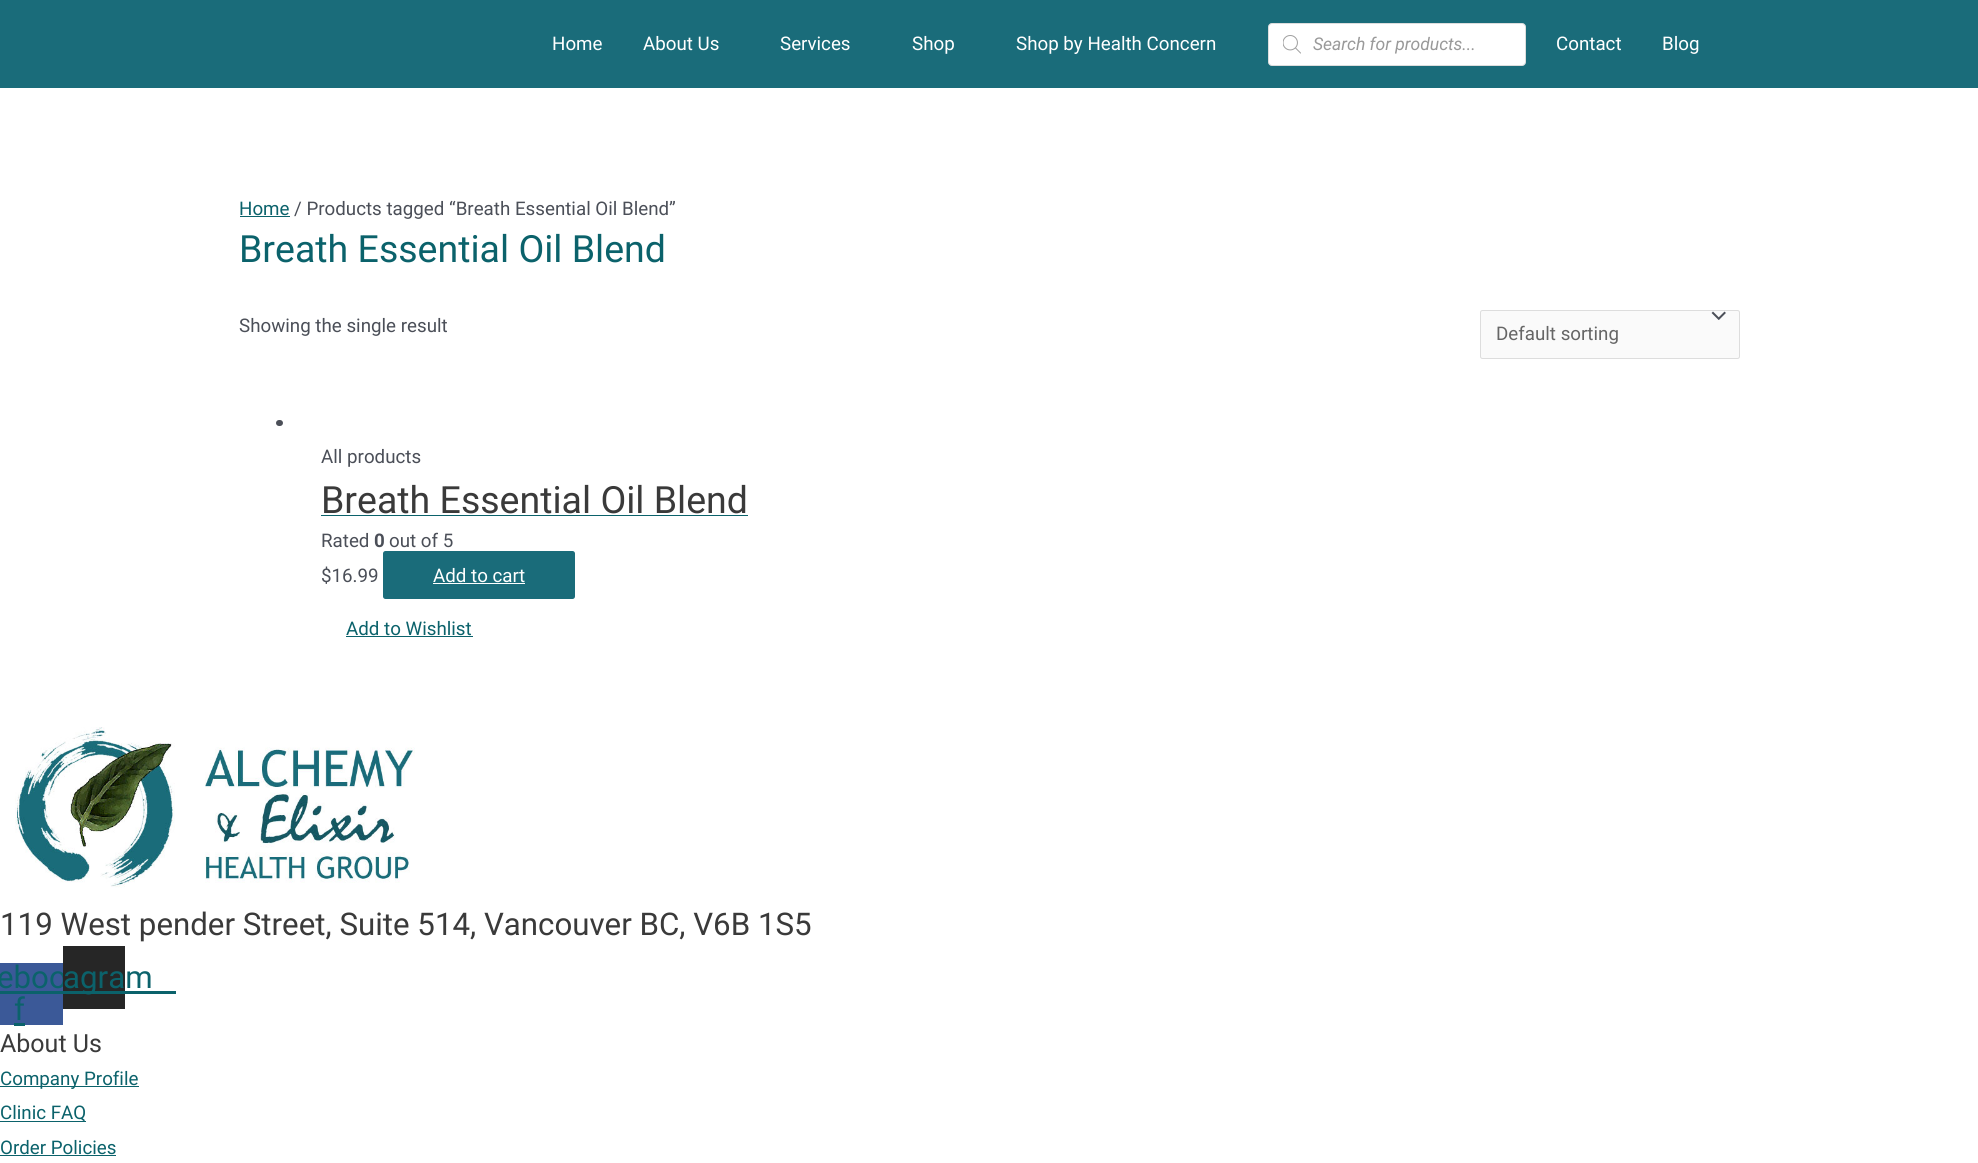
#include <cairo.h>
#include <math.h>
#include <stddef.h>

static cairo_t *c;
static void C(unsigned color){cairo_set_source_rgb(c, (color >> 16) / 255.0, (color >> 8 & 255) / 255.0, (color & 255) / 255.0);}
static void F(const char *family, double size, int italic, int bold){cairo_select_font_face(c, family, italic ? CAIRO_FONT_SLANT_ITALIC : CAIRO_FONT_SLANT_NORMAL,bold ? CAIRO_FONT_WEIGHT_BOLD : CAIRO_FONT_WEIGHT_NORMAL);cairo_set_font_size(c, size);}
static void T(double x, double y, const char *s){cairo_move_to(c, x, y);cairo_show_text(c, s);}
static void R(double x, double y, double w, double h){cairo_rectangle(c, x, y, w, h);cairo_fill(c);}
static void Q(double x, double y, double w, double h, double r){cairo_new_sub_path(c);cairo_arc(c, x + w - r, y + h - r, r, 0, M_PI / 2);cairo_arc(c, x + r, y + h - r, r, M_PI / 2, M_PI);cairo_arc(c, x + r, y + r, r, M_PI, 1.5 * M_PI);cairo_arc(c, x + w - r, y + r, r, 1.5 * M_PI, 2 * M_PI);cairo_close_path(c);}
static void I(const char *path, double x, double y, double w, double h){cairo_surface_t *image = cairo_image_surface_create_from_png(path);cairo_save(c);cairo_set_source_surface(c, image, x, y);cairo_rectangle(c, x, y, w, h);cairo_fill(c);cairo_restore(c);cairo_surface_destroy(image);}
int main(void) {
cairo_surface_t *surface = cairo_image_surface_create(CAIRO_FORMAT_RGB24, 1978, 1163);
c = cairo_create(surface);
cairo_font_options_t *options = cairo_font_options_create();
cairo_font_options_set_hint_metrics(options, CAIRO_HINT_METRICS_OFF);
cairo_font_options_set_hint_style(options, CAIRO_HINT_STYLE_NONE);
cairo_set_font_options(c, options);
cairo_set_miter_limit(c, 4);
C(0xffffff);
cairo_paint(c);
C(0x1a6c7a);
R(0,0,1978,88);
F("Roboto",18.75,0,0);
C(0xffffff);
T(552,50,"Home");
T(643,50,"About Us");
T(780,50,"Services");
T(912,50,"Shop");
T(1016,50,"Shop by Health Concern");
Q(1268.5,23.5,257,42,3.5);
cairo_fill_preserve(c);
C(0xdddddd);
cairo_set_line_width(c,1);
cairo_stroke(c);
I("1.png",1283,35,18,19);
F("Roboto",17.5,1,0);
C(0x999999);
T(1313,50,"Search for products...");
F("Roboto",18.75,0,0);
C(0xffffff);
T(1556,50,"Contact");
T(1662,50,"Blog");
C(0x0b626b);
T(239,215,"Home");
R(240,216,50,1);
C(0x4b4f58);
T(294,215,"/ Products tagged “Breath Essential Oil Blend”");
F("Roboto",37.5,0,0);
C(0x0b626b);
T(239,262,"Breath Essential Oil Blend");
F("Roboto",18.75,0,0);
C(0x4b4f58);
T(239,332,"Showing the single result");
C(0xfafafa);
Q(1480,310,260,49,2.5);
cairo_fill(c);
I("2.png",1711,311,15,9);
Q(1480.5,310.5,259,48,2);
C(0xdddddd);
cairo_stroke(c);
C(0x666666);
T(1496,340,"Default sorting");
C(0x4b4f58);
Q(276,420,7,6,3);
cairo_fill(c);
T(321,463,"All products");
F("Roboto",37.5,0,0);
C(0x3a3a3a);
T(321,513,"Breath Essential Oil Blend");
C(0x0b626b);
R(321,515,427,1);
F("Roboto",18.75,0,0);
C(0x4b4f58);
T(321,547,"Rated");
F("Roboto",18.75,0,1);
T(374,547,"0");
F("Roboto",18.75,0,0);
T(389,547,"out of 5");
T(321,582,"$16.99");
C(0x1a6c7a);
Q(383,551,192,48,2.5);
cairo_fill(c);
C(0xffffff);
T(433,582,"Add to cart");
R(433,583,92,1);
C(0x0b626b);
T(346,635,"Add to Wishlist");
R(346,636,127,1);
I("3.png",15,727,400,161);
F("Roboto",31.25,0,0);
C(0x3a3a3a);
T(0,935,"119 West pender Street, Suite 514, Vancouver BC, V6B 1S5");
C(0x3b5998);
R(0,963,63,62);
C(0x0b626b);
T(-3,988,"eboo");
R(0,991,11,3);
T(14,1020,"f");
R(14,1023,11,3);
C(0x262626);
R(63,946,62,63);
C(0x0b626b);
R(11,991,165,3);
T(63,988,"agram");
F("Roboto",25,0,0);
C(0x3a3a3a);
T(0,1052,"About Us");
C(0x0b626b);
R(0,1086,139,1);
F("Roboto",18.75,0,0);
T(0,1085,"Company Profile");
R(0,1121,86,1);
T(0,1119,"Clinic FAQ");
T(0,1154,"Order Policies");
R(0,1155,116,1);
cairo_surface_write_to_png(surface, "o.png");
cairo_font_options_destroy(options);
cairo_destroy(c);
cairo_surface_destroy(surface);
return 0;
}
